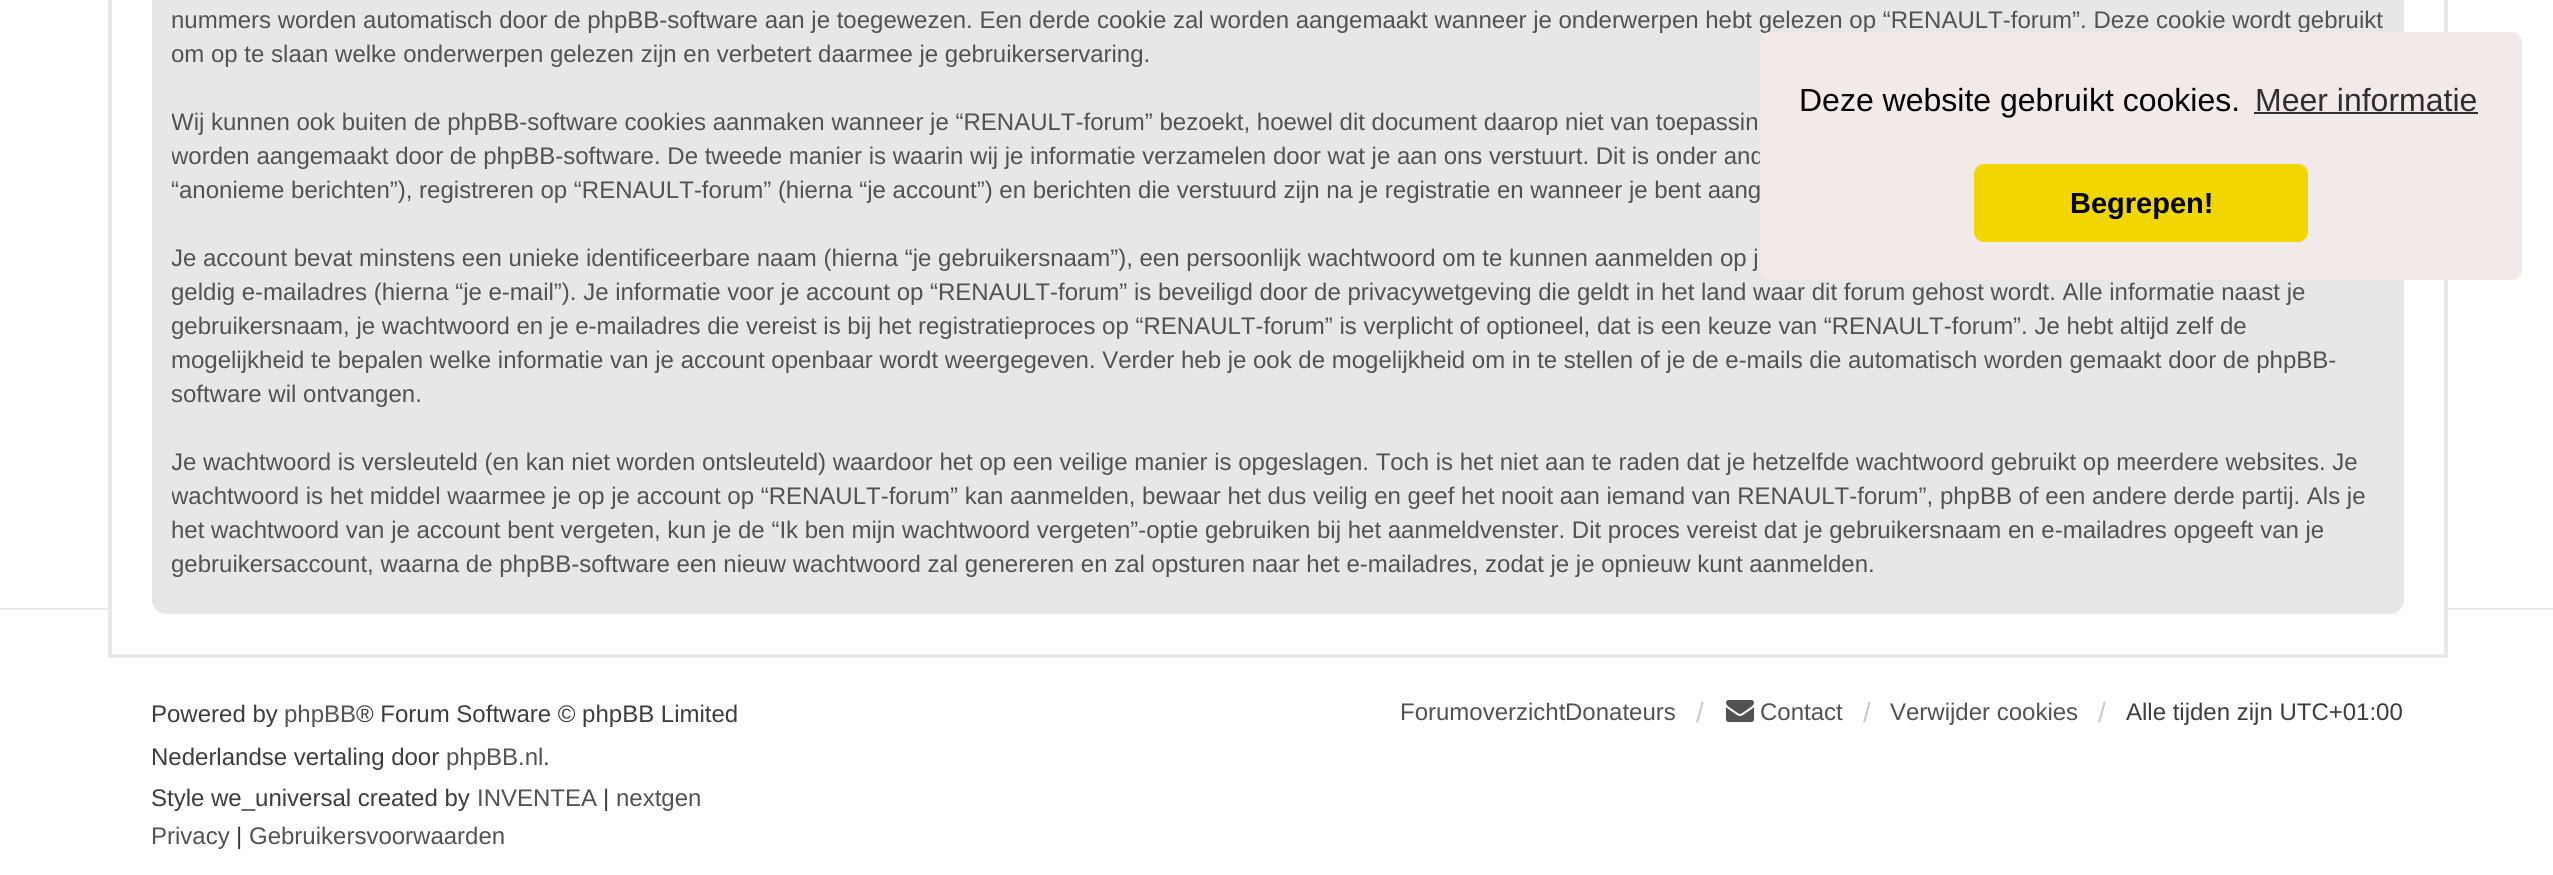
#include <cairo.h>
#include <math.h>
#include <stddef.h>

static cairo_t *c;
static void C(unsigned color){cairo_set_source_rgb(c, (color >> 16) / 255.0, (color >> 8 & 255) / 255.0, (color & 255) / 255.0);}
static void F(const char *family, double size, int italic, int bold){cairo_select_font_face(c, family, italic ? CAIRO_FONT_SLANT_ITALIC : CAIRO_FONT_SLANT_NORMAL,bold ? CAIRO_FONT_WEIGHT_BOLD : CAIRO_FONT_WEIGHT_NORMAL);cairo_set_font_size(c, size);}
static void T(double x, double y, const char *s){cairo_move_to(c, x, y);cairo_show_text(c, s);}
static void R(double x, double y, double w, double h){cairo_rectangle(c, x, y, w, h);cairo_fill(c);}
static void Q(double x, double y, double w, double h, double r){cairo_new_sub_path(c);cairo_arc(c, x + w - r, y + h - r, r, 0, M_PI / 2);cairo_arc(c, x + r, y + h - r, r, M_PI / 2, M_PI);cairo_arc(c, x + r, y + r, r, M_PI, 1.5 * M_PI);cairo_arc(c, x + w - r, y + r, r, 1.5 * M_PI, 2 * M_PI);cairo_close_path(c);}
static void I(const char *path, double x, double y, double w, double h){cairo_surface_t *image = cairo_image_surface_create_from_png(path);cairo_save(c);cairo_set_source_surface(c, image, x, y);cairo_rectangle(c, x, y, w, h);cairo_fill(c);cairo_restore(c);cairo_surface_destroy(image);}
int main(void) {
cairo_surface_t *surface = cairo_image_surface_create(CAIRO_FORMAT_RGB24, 2553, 875);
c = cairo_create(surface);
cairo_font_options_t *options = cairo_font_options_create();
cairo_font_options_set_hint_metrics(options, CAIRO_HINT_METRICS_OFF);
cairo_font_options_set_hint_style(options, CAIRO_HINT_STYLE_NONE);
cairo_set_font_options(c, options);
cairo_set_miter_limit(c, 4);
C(0xffffff);
cairo_paint(c);
C(0xe7e7e7);
R(0,608,2553,2);
C(0xffffff);
R(112,608,2332,2);
C(0xe7e7e7);
R(2444,0,4,658);
R(108,654,2340,4);
R(108,0,4,658);
Q(152,-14,2252,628,14);
cairo_fill(c);
F("Liberation Sans",24,0,0);
C(0x525252);
T(171,28,"nummers worden automatisch door de phpBB-software aan je toegewezen. Een derde cookie zal worden aangemaakt wanneer je onderwerpen hebt gelezen op “RENAULT-forum”. Deze cookie wordt gebruikt");
T(171,62,"om op te slaan welke onderwerpen gelezen zijn en verbetert daarmee je gebruikerservaring.");
cairo_save(c);
cairo_rectangle(c,172,0,2212,604);
cairo_clip(c);
T(171,130,"Wij kunnen ook buiten de phpBB-software cookies aanmaken wanneer je “RENAULT-forum” bezoekt, hoewel dit document daarop niet van toepassin");
T(171,164,"worden aangemaakt door de phpBB-software. De tweede manier is waarin wij je informatie verzamelen door wat je aan ons verstuurt. Dit is onder and");
cairo_restore(c);
T(171,198,"“anonieme berichten”), registreren op “RENAULT-forum” (hierna “je account”) en berichten die verstuurd zijn na je registratie en wanneer je bent aang");
cairo_save(c);
cairo_rectangle(c,172,0,2212,604);
cairo_clip(c);
T(171,266,"Je account bevat minstens een unieke identificeerbare naam (hierna “je gebruikersnaam”), een persoonlijk wachtwoord om te kunnen aanmelden op j");
cairo_restore(c);
T(171,300,"geldig e-mailadres (hierna “je e-mail”). Je informatie voor je account op “RENAULT-forum” is beveiligd door de privacywetgeving die geldt in het land waar dit forum gehost wordt. Alle informatie naast je");
T(171,334,"gebruikersnaam, je wachtwoord en je e-mailadres die vereist is bij het registratieproces op “RENAULT-forum” is verplicht of optioneel, dat is een keuze van “RENAULT-forum”. Je hebt altijd zelf de");
T(171,368,"mogelijkheid te bepalen welke informatie van je account openbaar wordt weergegeven. Verder heb je ook de mogelijkheid om in te stellen of je de e-mails die automatisch worden gemaakt door de phpBB-");
T(171,402,"software wil ontvangen.");
cairo_save(c);
cairo_rectangle(c,172,0,2212,604);
cairo_clip(c);
T(171,470,"Je wachtwoord is versleuteld (en kan niet worden ontsleuteld) waardoor het op een veilige manier is opgeslagen. Toch is het niet aan te raden dat je hetzelfde wachtwoord gebruikt op meerdere websites. Je");
T(171,504,"wachtwoord is het middel waarmee je op je account op “RENAULT-forum” kan aanmelden, bewaar het dus veilig en geef het nooit aan iemand van RENAULT-forum”, phpBB of een andere derde partij. Als je");
cairo_restore(c);
T(171,538,"het wachtwoord van je account bent vergeten, kun je de “Ik ben mijn wachtwoord vergeten”-optie gebruiken bij het aanmeldvenster. Dit proces vereist dat je gebruikersnaam en e-mailadres opgeeft van je");
T(171,572,"gebruikersaccount, waarna de phpBB-software een nieuw wachtwoord zal genereren en zal opsturen naar het e-mailadres, zodat je je opnieuw kunt aanmelden.");
C(0x3d3d3d);
T(151,722,"Powered by");
C(0x525252);
T(284,722,"phpBB");
C(0x3d3d3d);
T(356,722,"® Forum Software © phpBB Limited");
T(151,765,"Nederlandse vertaling door");
C(0x525252);
T(446,765,"phpBB.nl");
C(0x3d3d3d);
T(543,765,".");
T(151,806,"Style we_universal created by");
C(0x525252);
T(477,806,"INVENTEA");
C(0x3d3d3d);
T(603,806,"|");
C(0x525252);
T(616,806,"nextgen");
T(151,844,"Privacy");
C(0x3d3d3d);
T(236,844,"|");
C(0x525252);
T(249,844,"Gebruikersvoorwaarden");
T(1400,720,"Forumoverzicht");
T(1565,720,"Donateurs");
F("Liberation Sans",28,0,0);
C(0xcacaca);
T(1696,722,"/");
I("1.png",1726,700,28,22);
F("Liberation Sans",24,0,0);
C(0x525252);
T(1760,720,"Contact");
F("Liberation Sans",28,0,0);
C(0xcacaca);
T(1863,722,"/");
F("Liberation Sans",24,0,0);
C(0x525252);
T(1890,720,"Verwijder cookies");
F("Liberation Sans",28,0,0);
C(0xcacaca);
T(2098,722,"/");
F("Liberation Sans",24,0,0);
C(0x3d3d3d);
T(2126,720,"Alle tijden zijn UTC+01:00");
C(0xf2e9e9);
Q(1760,32,762,248,10);
cairo_fill(c);
F("Liberation Sans",32,0,0);
C(0x000000);
T(1799,111,"Deze website gebruikt cookies.");
C(0x302f2f);
T(2255,111,"Meer informatie");
R(2254,112,224,2);
C(0xf1d600);
Q(1974,164,334,78,10);
cairo_fill(c);
F("Liberation Sans",29,0,1);
C(0x000000);
T(2070,213,"Begrepen!");
cairo_surface_write_to_png(surface, "o.png");
cairo_font_options_destroy(options);
cairo_destroy(c);
cairo_surface_destroy(surface);
return 0;
}
